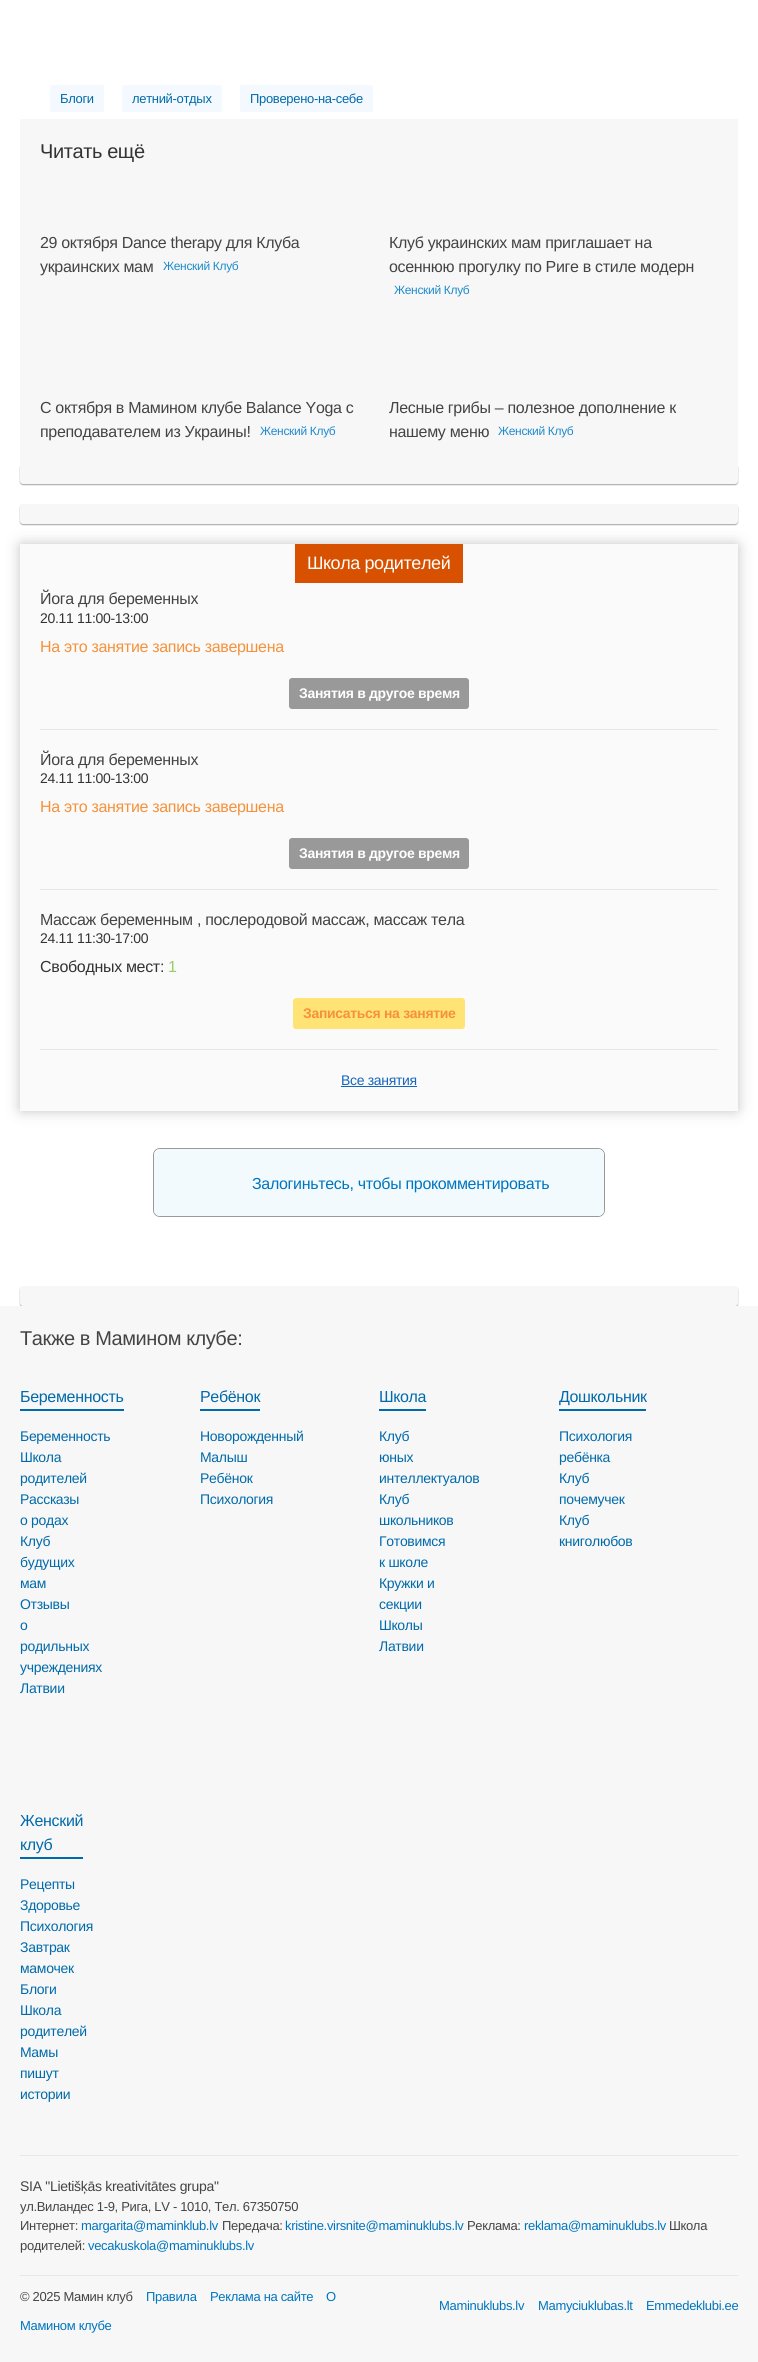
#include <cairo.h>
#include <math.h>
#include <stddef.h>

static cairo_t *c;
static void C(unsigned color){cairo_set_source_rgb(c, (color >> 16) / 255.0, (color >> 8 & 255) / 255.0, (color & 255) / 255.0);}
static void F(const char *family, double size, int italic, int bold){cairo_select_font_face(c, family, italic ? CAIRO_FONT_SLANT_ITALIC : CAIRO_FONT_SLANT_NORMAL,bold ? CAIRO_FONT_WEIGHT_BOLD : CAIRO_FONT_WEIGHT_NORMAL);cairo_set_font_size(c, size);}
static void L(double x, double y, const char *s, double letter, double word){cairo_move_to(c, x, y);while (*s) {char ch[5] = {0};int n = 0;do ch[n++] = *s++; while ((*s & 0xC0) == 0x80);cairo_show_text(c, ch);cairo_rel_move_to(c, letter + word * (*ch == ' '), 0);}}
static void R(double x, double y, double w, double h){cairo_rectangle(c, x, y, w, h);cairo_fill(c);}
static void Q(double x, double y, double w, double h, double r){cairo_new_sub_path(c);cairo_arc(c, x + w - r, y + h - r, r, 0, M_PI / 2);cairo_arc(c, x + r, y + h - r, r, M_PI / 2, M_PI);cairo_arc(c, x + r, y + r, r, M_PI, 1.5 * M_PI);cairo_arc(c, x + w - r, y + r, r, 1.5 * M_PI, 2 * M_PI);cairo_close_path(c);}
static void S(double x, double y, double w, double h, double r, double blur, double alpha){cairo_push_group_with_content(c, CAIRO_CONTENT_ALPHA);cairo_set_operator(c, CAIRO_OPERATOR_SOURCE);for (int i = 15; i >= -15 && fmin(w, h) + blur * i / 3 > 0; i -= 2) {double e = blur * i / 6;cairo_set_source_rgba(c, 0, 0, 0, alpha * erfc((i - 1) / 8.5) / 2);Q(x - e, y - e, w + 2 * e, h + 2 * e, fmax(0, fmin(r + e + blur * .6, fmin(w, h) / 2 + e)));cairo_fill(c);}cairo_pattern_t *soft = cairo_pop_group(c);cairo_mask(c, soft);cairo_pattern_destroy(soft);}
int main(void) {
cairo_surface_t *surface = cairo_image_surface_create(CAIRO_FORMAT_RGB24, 758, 2362);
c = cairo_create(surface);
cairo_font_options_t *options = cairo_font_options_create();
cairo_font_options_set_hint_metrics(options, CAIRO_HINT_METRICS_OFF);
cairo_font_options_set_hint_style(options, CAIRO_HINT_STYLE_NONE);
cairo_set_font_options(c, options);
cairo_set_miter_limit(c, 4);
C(0xffffff);
cairo_paint(c);
C(0xf3f9ff);
Q(50,85,54,27,2);
cairo_fill(c);
F("Liberation Sans",13,0,0);
C(0x006aaa);
L(60,103,"Блоги",-.32,0);
C(0xf3f9ff);
Q(122,85,100,27,2);
cairo_fill(c);
C(0x006aaa);
L(132,103,"летний-отдых",-.32,0);
C(0xf3f9ff);
Q(240,85,133,27,2);
cairo_fill(c);
C(0x006aaa);
L(250,103,"Проверено-на-себе",-.32,0);
C(0xf7f7f7);
R(20,119,718,345);
F("Liberation Sans",20,0,0);
C(0x333333);
L(40,158,"Читать ещё",-.4,0);
F("Liberation Sans",16,0,0);
C(0x444444);
L(40,248,"29 октября Dance therapy для Клуба",-.32,0);
L(40,272,"украинских мам",-.32,0);
F("Liberation Sans",12,0,0);
C(0x1f8bcc);
L(163,270,"Женский Клуб",-.32,0);
F("Liberation Sans",16,0,0);
C(0x444444);
L(389,248,"Клуб украинских мам приглашает на",-.32,0);
L(389,272,"осеннюю прогулку по Риге в стиле модерн",-.32,0);
F("Liberation Sans",12,0,0);
C(0x1f8bcc);
L(394,294,"Женский Клуб",-.32,0);
F("Liberation Sans",16,0,0);
C(0x444444);
L(40,413,"С октября в Мамином клубе Balance Yoga с",-.32,0);
L(40,437,"преподавателем из Украины!",-.32,0);
F("Liberation Sans",12,0,0);
C(0x1f8bcc);
L(260,435,"Женский Клуб",-.32,0);
F("Liberation Sans",16,0,0);
C(0x444444);
L(389,413,"Лесные грибы – полезное дополнение к",-.32,0);
L(389,437,"нашему меню",-.32,0);
F("Liberation Sans",12,0,0);
C(0x1f8bcc);
L(498,435,"Женский Клуб",-.32,0);
C(0xaaaaaa);
S(20,465,718,20,3,.5,1);
C(0xf7f7f7);
Q(20,464,718,20,3);
cairo_fill(c);
C(0xaaaaaa);
S(20,505,718,20,3,.5,1);
C(0xf7f7f7);
Q(20,504,718,20,3);
cairo_fill(c);
C(0xababab);
S(22,546,714,563,0,7.5,.89);
C(0xfafafa);
R(20,544,718,567);
C(0xd75100);
R(295,544,168,39);
F("Liberation Sans",18,0,0);
C(0xffffff);
L(307,569,"Школа родителей",-.4,0);
C(0xe7e7e7);
R(40,729,678,1);
F("Liberation Sans",16,0,0);
C(0x444444);
L(40,604,"Йога для беременных",-.32,0);
F("Liberation Sans",14,0,0);
C(0x333333);
L(40,623,"20.11 11:00-13:00",-.32,0);
F("Liberation Sans",16,0,0);
C(0xf6913b);
L(40,652,"На это занятие запись завершена",-.32,0);
C(0x999999);
Q(289,678,180,31,3);
cairo_fill(c);
F("Liberation Sans",14,0,1);
C(0xffffff);
L(299,698,"Занятия в другое время",-.32,0);
C(0xe7e7e7);
R(40,889,678,1);
F("Liberation Sans",16,0,0);
C(0x444444);
L(40,765,"Йога для беременных",-.32,0);
F("Liberation Sans",14,0,0);
C(0x333333);
L(40,783,"24.11 11:00-13:00",-.32,0);
F("Liberation Sans",16,0,0);
C(0xf6913b);
L(40,812,"На это занятие запись завершена",-.32,0);
C(0x999999);
Q(289,838,180,31,3);
cairo_fill(c);
F("Liberation Sans",14,0,1);
C(0xffffff);
L(299,858,"Занятия в другое время",-.32,0);
C(0xe7e7e7);
R(40,1049,678,1);
F("Liberation Sans",16,0,0);
C(0x444444);
L(40,925,"Mассаж беременным , послеродовой массаж, массаж тела",-.32,0);
F("Liberation Sans",14,0,0);
C(0x333333);
L(40,943,"24.11 11:30-17:00",-.32,0);
F("Liberation Sans",16,0,0);
L(40,972,"Свободных мест:",-.32,0);
C(0x99cb67);
L(168,972,"1",-.32,0);
C(0xffe374);
Q(293,998,172,31,3);
cairo_fill(c);
F("Liberation Sans",14,0,1);
C(0xf6913b);
L(303,1018,"Записаться на занятие",-.32,0);
F("Liberation Sans",14,0,0);
C(0x1565c0);
L(341,1085,"Все занятия",-.32,0);
R(341,1086,76,1);
Q(153.5,1148.5,451,68,6.5);
C(0x999999);
cairo_set_line_width(c,1);
cairo_stroke(c);
C(0xf2fafe);
Q(154,1149,450,67,6);
cairo_fill(c);
F("Liberation Sans",16,0,0);
C(0x0075bf);
L(252,1189,"Залогиньтесь, чтобы прокомментировать",-.32,0);
C(0xaaaaaa);
S(20,1287,718,20,3,.5,1);
C(0xf7f7f7);
Q(20,1286,718,20,3);
cairo_fill(c);
R(0,1306,758,1056);
F("Liberation Sans",20,0,0);
C(0x444444);
L(20,1345,"Также в Мамином клубе:",-.4,0);
C(0x006aaa);
R(20,1409,104,2);
F("Liberation Sans",16,0,0);
L(20,1402,"Беременность",-.32,0);
F("Liberation Sans",14,0,0);
L(20,1441,"Беременность",-.3,0);
L(20,1462,"Школа",-.3,0);
L(20,1483,"родителей",-.3,0);
L(20,1504,"Рассказы",-.3,0);
L(20,1525,"о родах",-.3,0);
L(20,1546,"Клуб",-.3,0);
L(20,1567,"будущих",-.3,0);
L(20,1588,"мам",-.3,0);
L(20,1609,"Отзывы",-.3,0);
L(20,1630,"о",-.3,0);
L(20,1651,"родильных",-.3,0);
L(20,1672,"учреждениях",-.3,0);
L(20,1693,"Латвии",-.3,0);
R(200,1409,60,2);
F("Liberation Sans",16,0,0);
L(200,1402,"Ребёнок",-.32,0);
F("Liberation Sans",14,0,0);
L(200,1441,"Новорожденный",-.3,0);
L(200,1462,"Малыш",-.3,0);
L(200,1483,"Ребёнок",-.3,0);
L(200,1504,"Психология",-.3,0);
R(379,1409,47,2);
F("Liberation Sans",16,0,0);
L(379,1402,"Школа",-.32,0);
F("Liberation Sans",14,0,0);
L(379,1441,"Клуб",-.3,0);
L(379,1462,"юных",-.3,0);
L(379,1483,"интеллектуалов",-.3,0);
L(379,1504,"Клуб",-.3,0);
L(379,1525,"школьников",-.3,0);
L(379,1546,"Готовимся",-.3,0);
L(379,1567,"к школе",-.3,0);
L(379,1588,"Кружки и",-.3,0);
L(379,1609,"секции",-.3,0);
L(379,1630,"Школы",-.3,0);
L(379,1651,"Латвии",-.3,0);
R(559,1409,87,2);
F("Liberation Sans",16,0,0);
L(559,1402,"Дошкольник",-.32,0);
F("Liberation Sans",14,0,0);
L(559,1441,"Психология",-.3,0);
L(559,1462,"ребёнка",-.3,0);
L(559,1483,"Клуб",-.3,0);
L(559,1504,"почемучек",-.3,0);
L(559,1525,"Клуб",-.3,0);
L(559,1546,"книголюбов",-.3,0);
R(20,1857,63,2);
F("Liberation Sans",16,0,0);
L(20,1826,"Женский",-.32,0);
L(20,1850,"клуб",-.32,0);
F("Liberation Sans",14,0,0);
L(20,1889,"Рецепты",-.3,0);
L(20,1910,"Здоровье",-.3,0);
L(20,1931,"Психология",-.3,0);
L(20,1952,"Завтрак",-.3,0);
L(20,1973,"мамочек",-.3,0);
L(20,1994,"Блоги",-.3,0);
L(20,2015,"Школа",-.3,0);
L(20,2036,"родителей",-.3,0);
L(20,2057,"Мамы",-.3,0);
L(20,2078,"пишут",-.3,0);
L(20,2099,"истории",-.3,0);
C(0xe7e7e7);
R(20,2155,718,1);
R(20,2275,718,1);
C(0x444444);
L(20,2191,"SIA \"Lietišķās kreativitātes grupa\"",-.3,0);
F("Liberation Sans",13,0,0);
L(20,2211,"ул.Виландес 1-9, Рига, LV - 1010, Tел. 67350750",-.32,0);
L(20,2230,"Интернет:",-.32,0);
C(0x0075bf);
L(81,2230,"margarita@maminklub.lv",-.32,0);
C(0x444444);
L(222,2230,"Передача:",-.32,0);
C(0x0075bf);
L(285,2230,"kristine.virsnite@maminuklubs.lv",-.32,0);
C(0x444444);
L(467,2230,"Реклама:",-.32,0);
C(0x0075bf);
L(524,2230,"reklama@maminuklubs.lv",-.32,0);
C(0x444444);
L(669,2230,"Школа",-.32,0);
L(20,2250,"родителей:",-.32,0);
C(0x0075bf);
L(88,2250,"vecakuskola@maminuklubs.lv",-.32,0);
C(0x444444);
L(20,2301,"© 2025 Мамин клуб",-.32,0);
C(0x0075bf);
L(146,2301,"Правила",-.32,0);
L(210,2301,"Реклама на сайте",-.32,0);
L(326,2301,"О",-.32,0);
L(20,2330,"Мамином клубе",-.32,0);
L(439,2310,"Maminuklubs.lv",-.32,0);
L(538,2310,"Mamyciuklubas.lt",-.32,0);
L(646,2310,"Emmedeklubi.ee",-.32,0);
cairo_surface_write_to_png(surface, "o.png");
cairo_font_options_destroy(options);
cairo_destroy(c);
cairo_surface_destroy(surface);
return 0;
}
